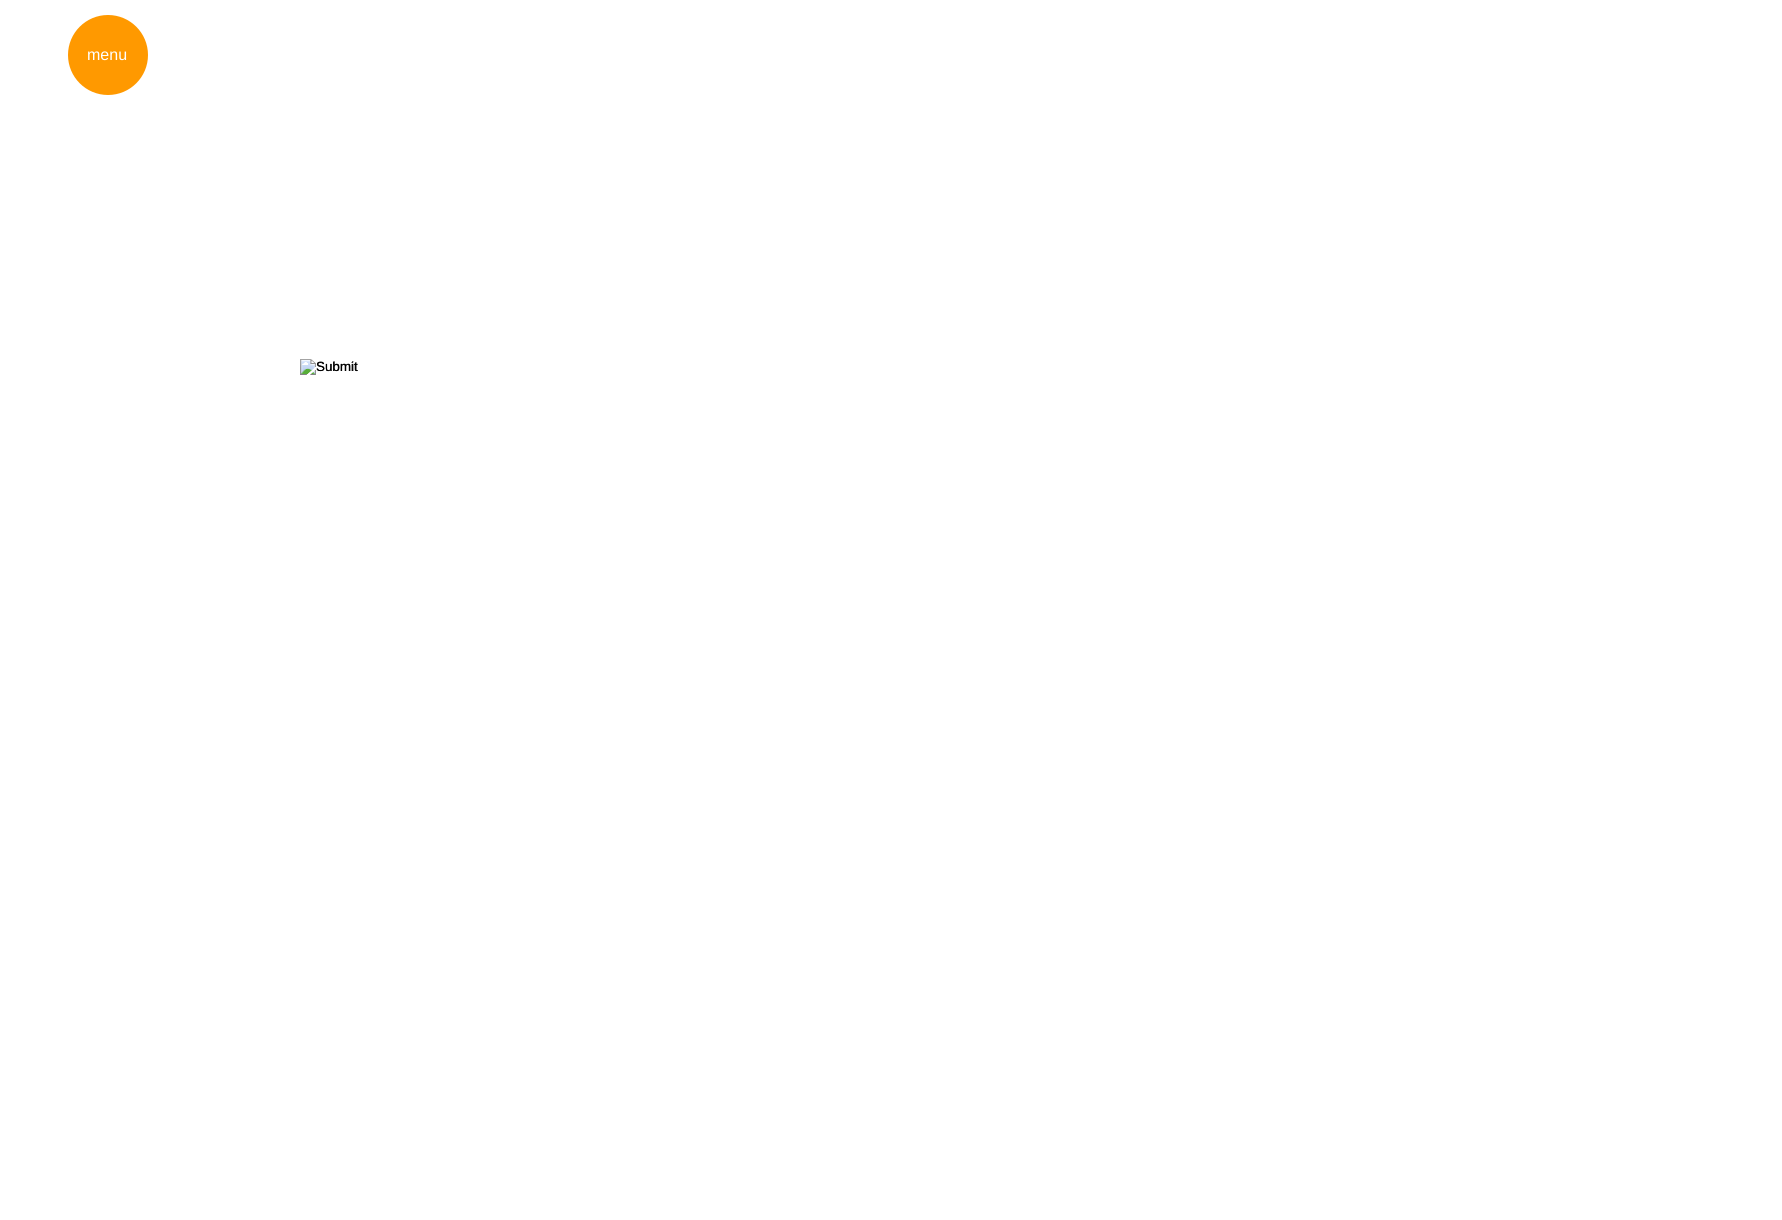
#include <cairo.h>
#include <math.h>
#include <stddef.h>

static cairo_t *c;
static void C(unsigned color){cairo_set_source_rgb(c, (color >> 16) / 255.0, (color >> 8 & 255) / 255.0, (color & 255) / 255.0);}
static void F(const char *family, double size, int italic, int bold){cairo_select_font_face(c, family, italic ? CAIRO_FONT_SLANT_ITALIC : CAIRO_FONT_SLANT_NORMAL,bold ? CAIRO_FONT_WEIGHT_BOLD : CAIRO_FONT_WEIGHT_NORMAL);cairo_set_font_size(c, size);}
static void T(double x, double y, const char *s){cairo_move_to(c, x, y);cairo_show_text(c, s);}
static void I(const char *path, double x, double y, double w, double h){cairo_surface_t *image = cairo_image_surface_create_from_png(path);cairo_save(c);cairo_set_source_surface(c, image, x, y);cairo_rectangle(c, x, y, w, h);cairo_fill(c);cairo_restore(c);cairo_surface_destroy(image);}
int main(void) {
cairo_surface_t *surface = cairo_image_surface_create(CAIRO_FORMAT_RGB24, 1782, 1220);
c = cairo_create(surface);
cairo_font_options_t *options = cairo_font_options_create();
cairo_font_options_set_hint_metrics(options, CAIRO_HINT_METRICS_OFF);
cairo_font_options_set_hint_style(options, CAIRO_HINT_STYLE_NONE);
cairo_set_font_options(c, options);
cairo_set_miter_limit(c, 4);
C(0xffffff);
cairo_paint(c);
C(0xff9900);
cairo_arc(c,108,55,40,0,2 * M_PI);
cairo_fill(c);
F("Liberation Sans",16,0,0);
C(0xffffff);
T(87,60,"menu");
I("1.png",300,359,57,16);
F("Liberation Sans",13.5,0,0);
C(0x000000);
T(316,371,"Submit");
cairo_surface_write_to_png(surface, "o.png");
cairo_font_options_destroy(options);
cairo_destroy(c);
cairo_surface_destroy(surface);
return 0;
}
